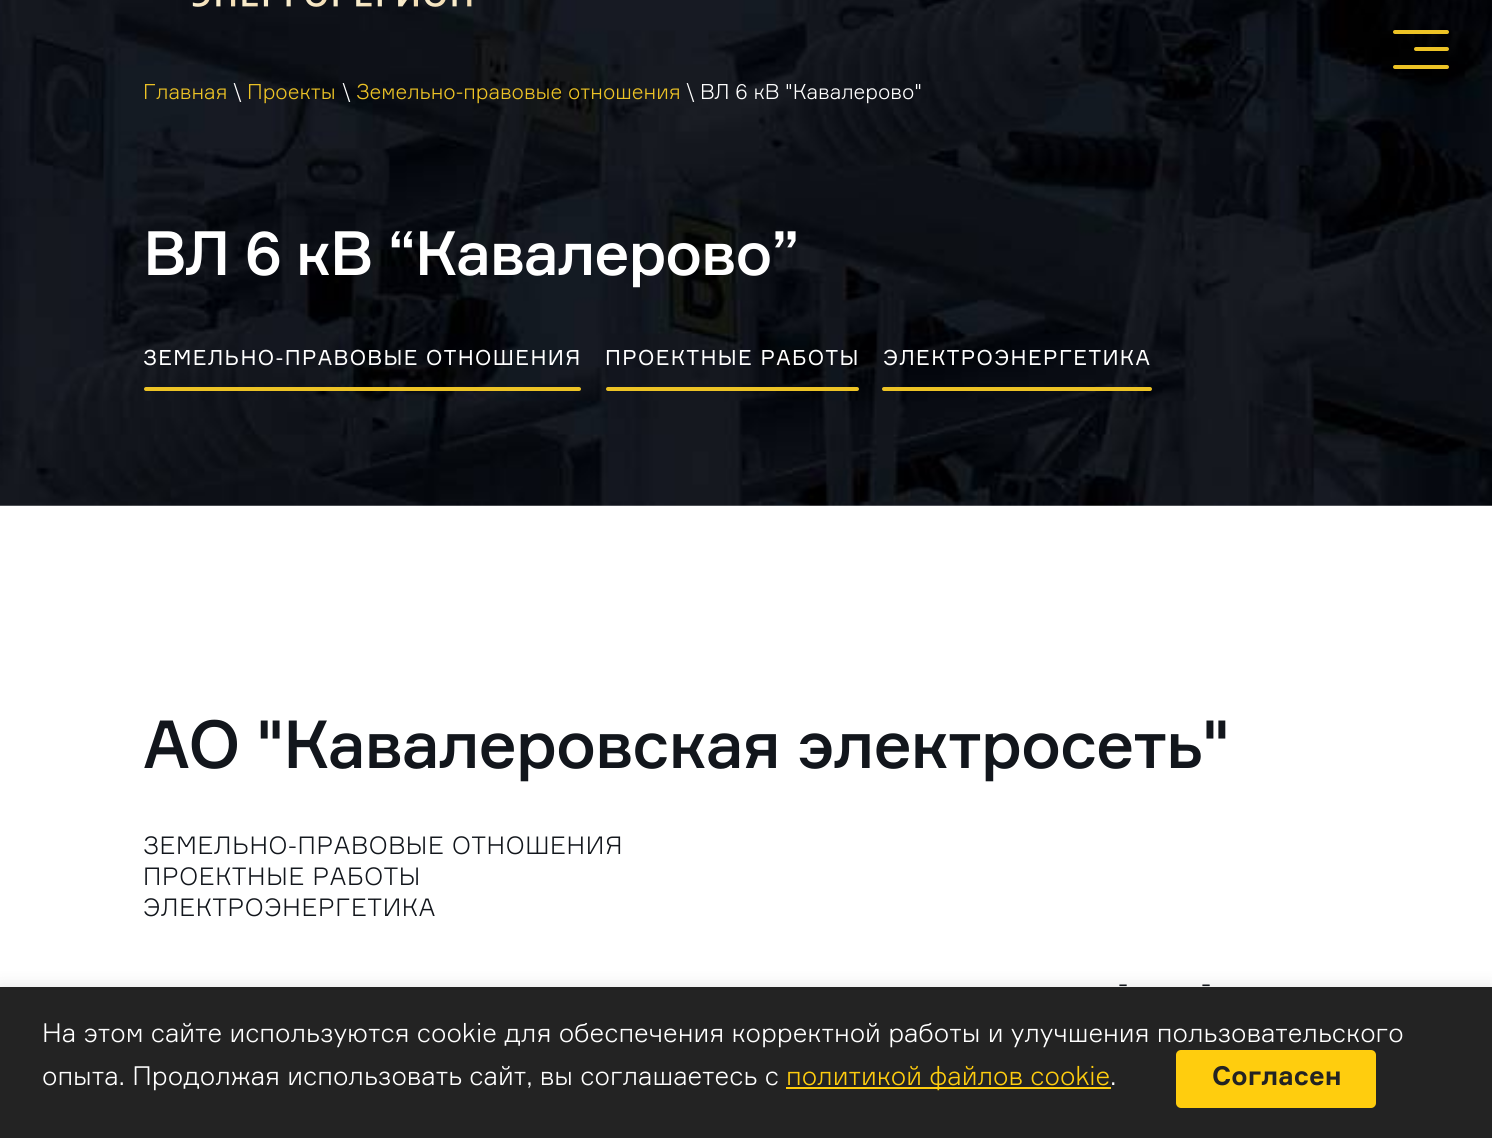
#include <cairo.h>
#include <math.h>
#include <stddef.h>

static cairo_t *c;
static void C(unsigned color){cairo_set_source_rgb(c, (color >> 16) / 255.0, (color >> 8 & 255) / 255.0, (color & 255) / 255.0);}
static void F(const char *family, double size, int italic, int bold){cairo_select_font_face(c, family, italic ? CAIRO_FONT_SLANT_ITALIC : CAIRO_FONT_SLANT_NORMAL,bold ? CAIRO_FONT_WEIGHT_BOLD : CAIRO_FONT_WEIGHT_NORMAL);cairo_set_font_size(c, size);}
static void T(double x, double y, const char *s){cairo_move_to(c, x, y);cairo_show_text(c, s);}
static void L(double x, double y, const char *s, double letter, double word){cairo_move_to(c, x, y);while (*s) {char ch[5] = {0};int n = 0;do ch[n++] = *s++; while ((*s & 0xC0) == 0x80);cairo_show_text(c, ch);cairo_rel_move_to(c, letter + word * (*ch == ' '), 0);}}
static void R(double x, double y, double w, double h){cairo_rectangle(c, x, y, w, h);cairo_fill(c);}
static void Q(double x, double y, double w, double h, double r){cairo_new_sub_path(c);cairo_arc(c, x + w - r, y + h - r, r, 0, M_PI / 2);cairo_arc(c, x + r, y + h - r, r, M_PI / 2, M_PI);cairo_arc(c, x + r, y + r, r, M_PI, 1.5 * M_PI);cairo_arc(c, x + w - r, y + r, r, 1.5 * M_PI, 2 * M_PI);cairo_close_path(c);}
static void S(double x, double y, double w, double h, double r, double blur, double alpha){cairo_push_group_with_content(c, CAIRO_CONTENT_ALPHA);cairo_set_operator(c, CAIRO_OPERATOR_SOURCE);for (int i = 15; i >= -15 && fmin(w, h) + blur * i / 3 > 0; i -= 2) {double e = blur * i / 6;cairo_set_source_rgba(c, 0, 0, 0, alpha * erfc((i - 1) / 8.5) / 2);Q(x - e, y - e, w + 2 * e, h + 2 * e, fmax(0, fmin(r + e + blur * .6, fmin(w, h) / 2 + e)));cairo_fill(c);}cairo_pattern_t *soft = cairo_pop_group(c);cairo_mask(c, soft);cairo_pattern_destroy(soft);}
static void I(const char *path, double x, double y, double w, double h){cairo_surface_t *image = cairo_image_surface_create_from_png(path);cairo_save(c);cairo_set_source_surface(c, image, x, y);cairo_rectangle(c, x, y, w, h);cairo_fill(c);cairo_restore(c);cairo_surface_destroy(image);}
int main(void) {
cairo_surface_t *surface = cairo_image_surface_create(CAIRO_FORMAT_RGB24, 1492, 1138);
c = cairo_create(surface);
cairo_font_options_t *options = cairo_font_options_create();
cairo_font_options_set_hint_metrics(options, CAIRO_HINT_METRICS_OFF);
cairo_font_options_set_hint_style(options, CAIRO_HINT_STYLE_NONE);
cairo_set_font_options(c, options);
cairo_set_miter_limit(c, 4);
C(0xffffff);
cairo_paint(c);
I("1.png",0,0,1492,506);
C(0xedc325);
Q(1414,47,35,4,2);
cairo_fill(c);
Q(1393,30,56,4,2);
cairo_fill(c);
Q(1393,65,56,4,2);
cairo_fill(c);
I("2.png",192,0,280,7);
F("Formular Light",21,0,0);
T(143,99,"Главная");
C(0xffffff);
T(233,99,"\\");
C(0xedc325);
T(247,99,"Проекты");
C(0xffffff);
T(342,99,"\\");
C(0xedc325);
T(356,99,"Земельно-правовые отношения");
C(0xffffff);
T(686,99,"\\ ВЛ 6 кВ \"Кавалерово\"");
F("Formular Medium",61.25,0,0);
L(143,275,"ВЛ 6 кВ “Кавалерово”",-1.6,0);
F("Formular",21,0,0);
L(143,365,"ЗЕМЕЛЬНО-ПРАВОВЫЕ ОТНОШЕНИЯ",1.4,0);
C(0xedc325);
Q(144,387,437,4,2);
cairo_fill(c);
C(0xffffff);
L(605,365,"ПРОЕКТНЫЕ РАБОТЫ",1.4,0);
C(0xedc325);
Q(606,387,253,4,2);
cairo_fill(c);
C(0xffffff);
L(883,365,"ЭЛЕКТРОЭНЕРГЕТИКА",1.4,0);
C(0xedc325);
Q(882,387,270,4,2);
cairo_fill(c);
F("Formular Medium",66.5,0,0);
C(0x12161c);
L(143,768,"АО \"Кавалеровская электросеть\"",-1.6,0);
F("Formular Light",24.5,0,0);
L(143,854,"ЗЕМЕЛЬНО-ПРАВОВЫЕ ОТНОШЕНИЯ",.7,0);
L(143,885,"ПРОЕКТНЫЕ РАБОТЫ",.7,0);
L(143,916,"ЭЛЕКТРОЭНЕРГЕТИКА",.7,0);
F("Formular Light",28,0,0);
T(1118,993,"-");
T(1201,993,"-");
C(0x000000);
S(0,987,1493,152,0,9,.1);
C(0x232323);
R(0,987,1492,151);
F("Formular Light",26.25,0,0);
C(0xffffff);
T(42,1042,"На этом сайте используются cookie для обеспечения корректной работы и улучшения пользовательского");
T(42,1085,"опыта. Продолжая использовать сайт, вы соглашаетесь с");
C(0xffcd0e);
R(786,1087,325,2);
T(786,1085,"политикой файлов cookie");
C(0xffffff);
T(1110,1085,".");
C(0xffcd0e);
Q(1176,1050,200,58,5);
cairo_fill(c);
F("Formular",26.25,0,1);
C(0x232323);
T(1212,1085,"Согласен");
cairo_surface_write_to_png(surface, "o.png");
cairo_font_options_destroy(options);
cairo_destroy(c);
cairo_surface_destroy(surface);
return 0;
}
